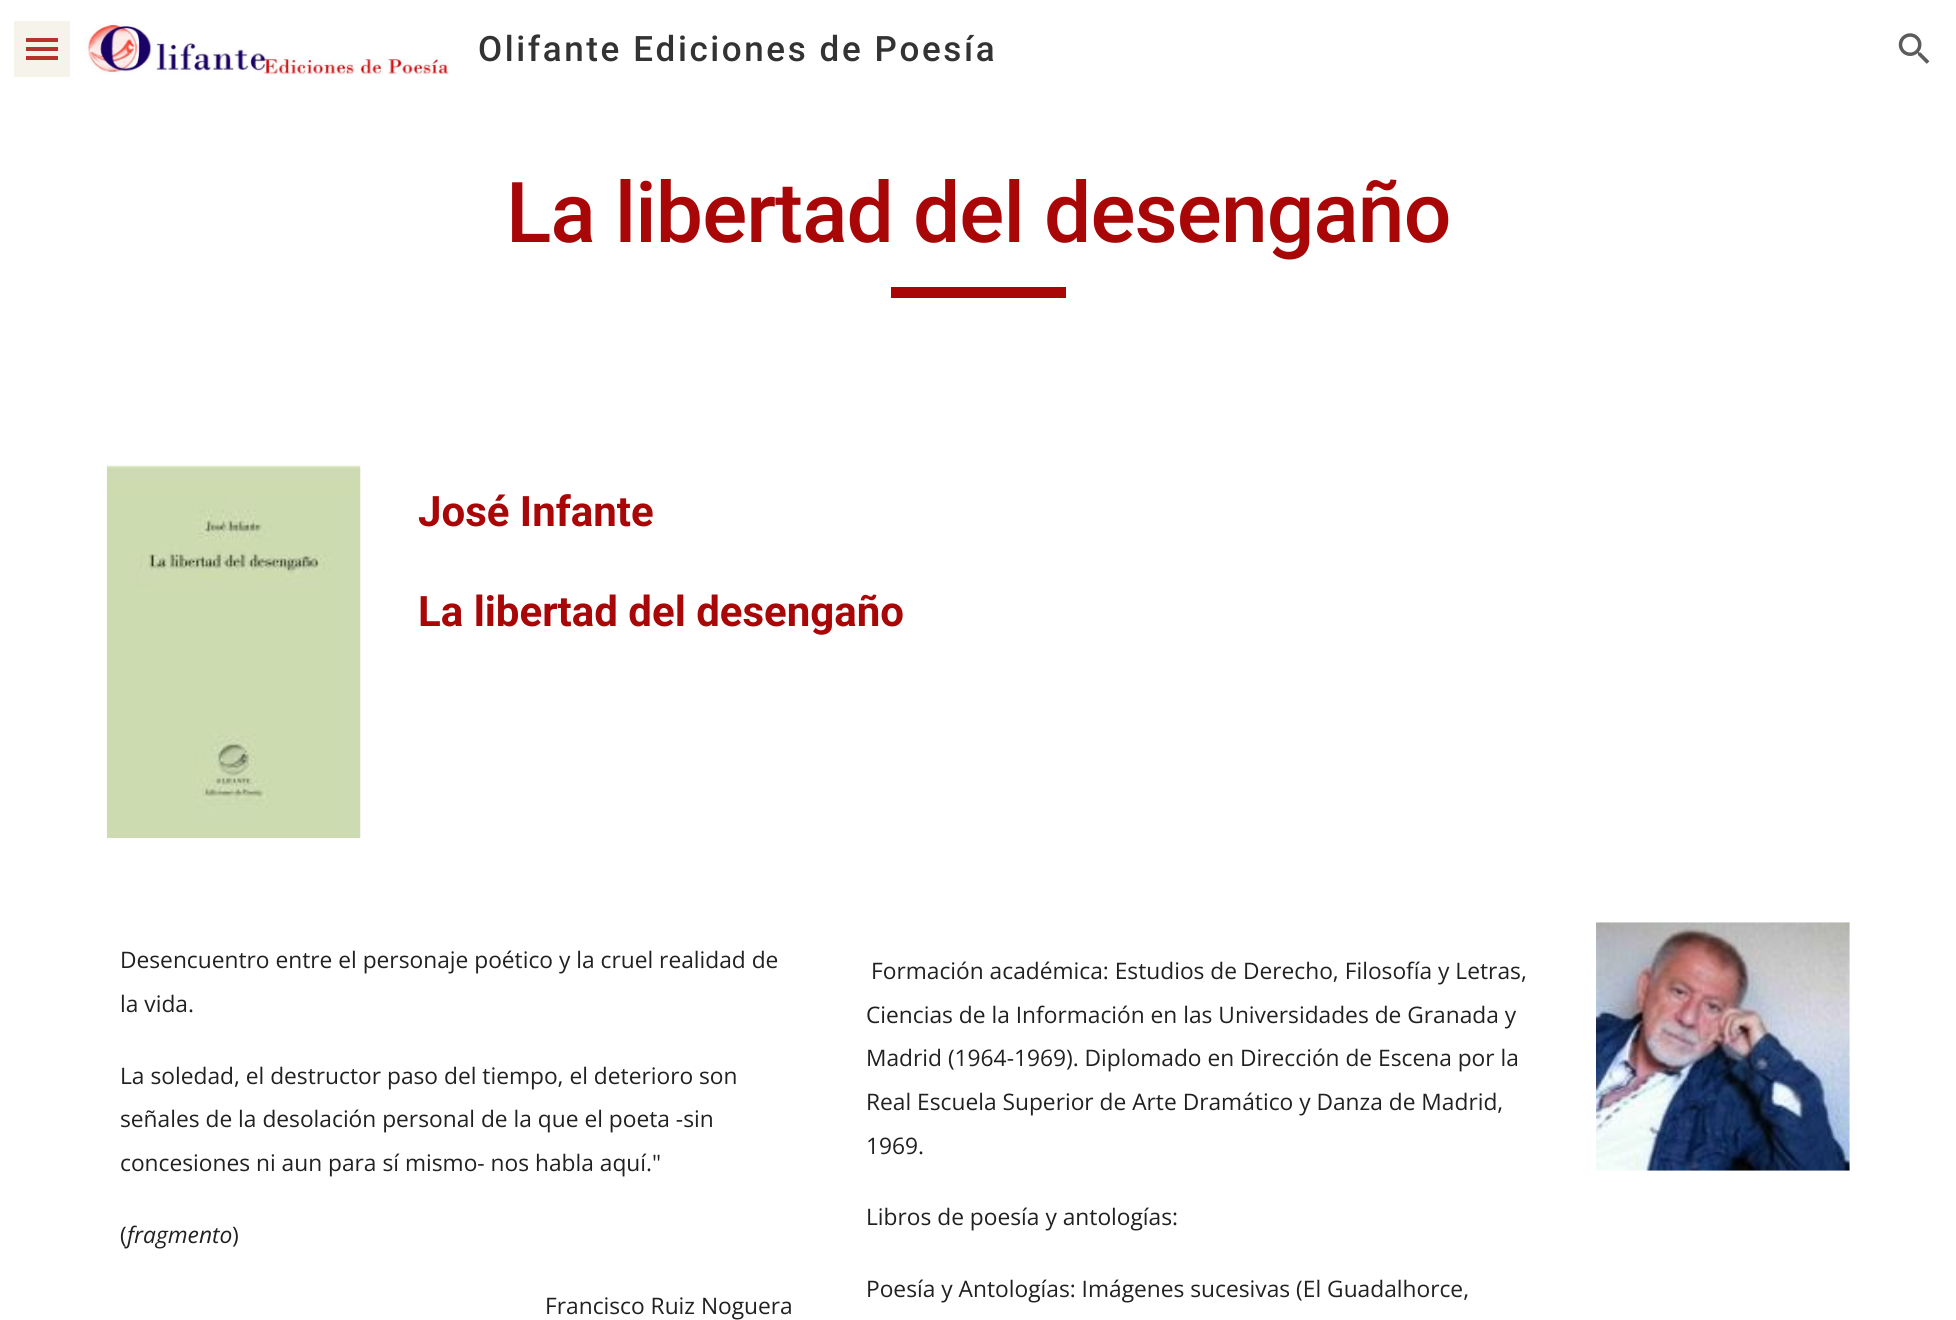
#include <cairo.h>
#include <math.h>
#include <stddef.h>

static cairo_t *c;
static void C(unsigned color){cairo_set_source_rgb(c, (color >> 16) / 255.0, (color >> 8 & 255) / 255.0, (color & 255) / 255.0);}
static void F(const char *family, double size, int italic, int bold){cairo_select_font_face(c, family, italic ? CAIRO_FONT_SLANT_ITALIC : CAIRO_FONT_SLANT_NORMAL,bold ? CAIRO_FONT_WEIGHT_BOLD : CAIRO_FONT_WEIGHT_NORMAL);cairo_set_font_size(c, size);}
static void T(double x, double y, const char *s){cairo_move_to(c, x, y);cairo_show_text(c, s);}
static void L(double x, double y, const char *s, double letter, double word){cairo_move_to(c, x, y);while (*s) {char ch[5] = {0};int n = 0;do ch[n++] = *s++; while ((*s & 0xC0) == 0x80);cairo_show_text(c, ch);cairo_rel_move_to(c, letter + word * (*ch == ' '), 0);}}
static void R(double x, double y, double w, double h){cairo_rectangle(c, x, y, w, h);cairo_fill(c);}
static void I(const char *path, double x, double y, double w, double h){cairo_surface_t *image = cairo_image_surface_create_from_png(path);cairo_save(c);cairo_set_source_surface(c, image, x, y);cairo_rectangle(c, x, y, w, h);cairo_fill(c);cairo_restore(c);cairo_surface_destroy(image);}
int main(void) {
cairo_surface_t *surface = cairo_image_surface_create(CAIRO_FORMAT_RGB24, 1956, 1320);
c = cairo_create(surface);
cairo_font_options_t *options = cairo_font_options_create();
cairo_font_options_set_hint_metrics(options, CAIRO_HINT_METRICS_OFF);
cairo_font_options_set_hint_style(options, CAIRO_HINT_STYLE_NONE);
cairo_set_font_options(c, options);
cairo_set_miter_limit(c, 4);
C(0xffffff);
cairo_paint(c);
C(0xf6f3ea);
R(14,21,56,56);
C(0xb4342b);
R(26,38,32,4);
R(26,47,32,4);
R(26,56,32,4);
I("1.png",84,21,366,54);
F("Roboto Medium",35,0,0);
C(0x333333);
L(478,61,"Olifante Ediciones de Poesía",2.6,0);
I("2.png",1898,33,32,31);
F("Roboto Medium",84,0,0);
C(0xa90707);
L(506,242,"La libertad del desengaño",-.9,0);
R(891,287,175,11);
I("3.png",106,465,255,374);
F("Roboto",42,0,1);
T(418,526,"José Infante");
T(418,626,"La libertad del desengaño");
F("Open Sans",22.75,0,0);
C(0x212121);
T(120,968,"Desencuentro entre el personaje poético y la cruel realidad de");
T(120,1012,"la vida.");
T(120,1084,"La soledad, el destructor paso del tiempo, el deterioro son");
T(120,1127,"señales de la desolación personal de la que el poeta -sin");
T(120,1171,"concesiones ni aun para sí mismo- nos habla aquí.\"");
T(120,1243,"(");
F("Open Sans",22.75,1,0);
T(127,1243,"fragmento");
F("Open Sans",22.75,0,0);
T(232,1243,")");
T(545,1314,"Francisco Ruiz Noguera");
T(871,979,"Formación académica: Estudios de Derecho, Filosofía y Letras,");
T(866,1023,"Ciencias de la Información en las Universidades de Granada y");
T(866,1066,"Madrid (1964-1969). Diplomado en Dirección de Escena por la");
T(866,1110,"Real Escuela Superior de Arte Dramático y Danza de Madrid,");
T(866,1154,"1969.");
T(866,1225,"Libros de poesía y antologías:");
T(866,1297,"Poesía y Antologías: Imágenes sucesivas (El Guadalhorce,");
I("4.png",1596,922,254,249);
cairo_surface_write_to_png(surface, "o.png");
cairo_font_options_destroy(options);
cairo_destroy(c);
cairo_surface_destroy(surface);
return 0;
}
